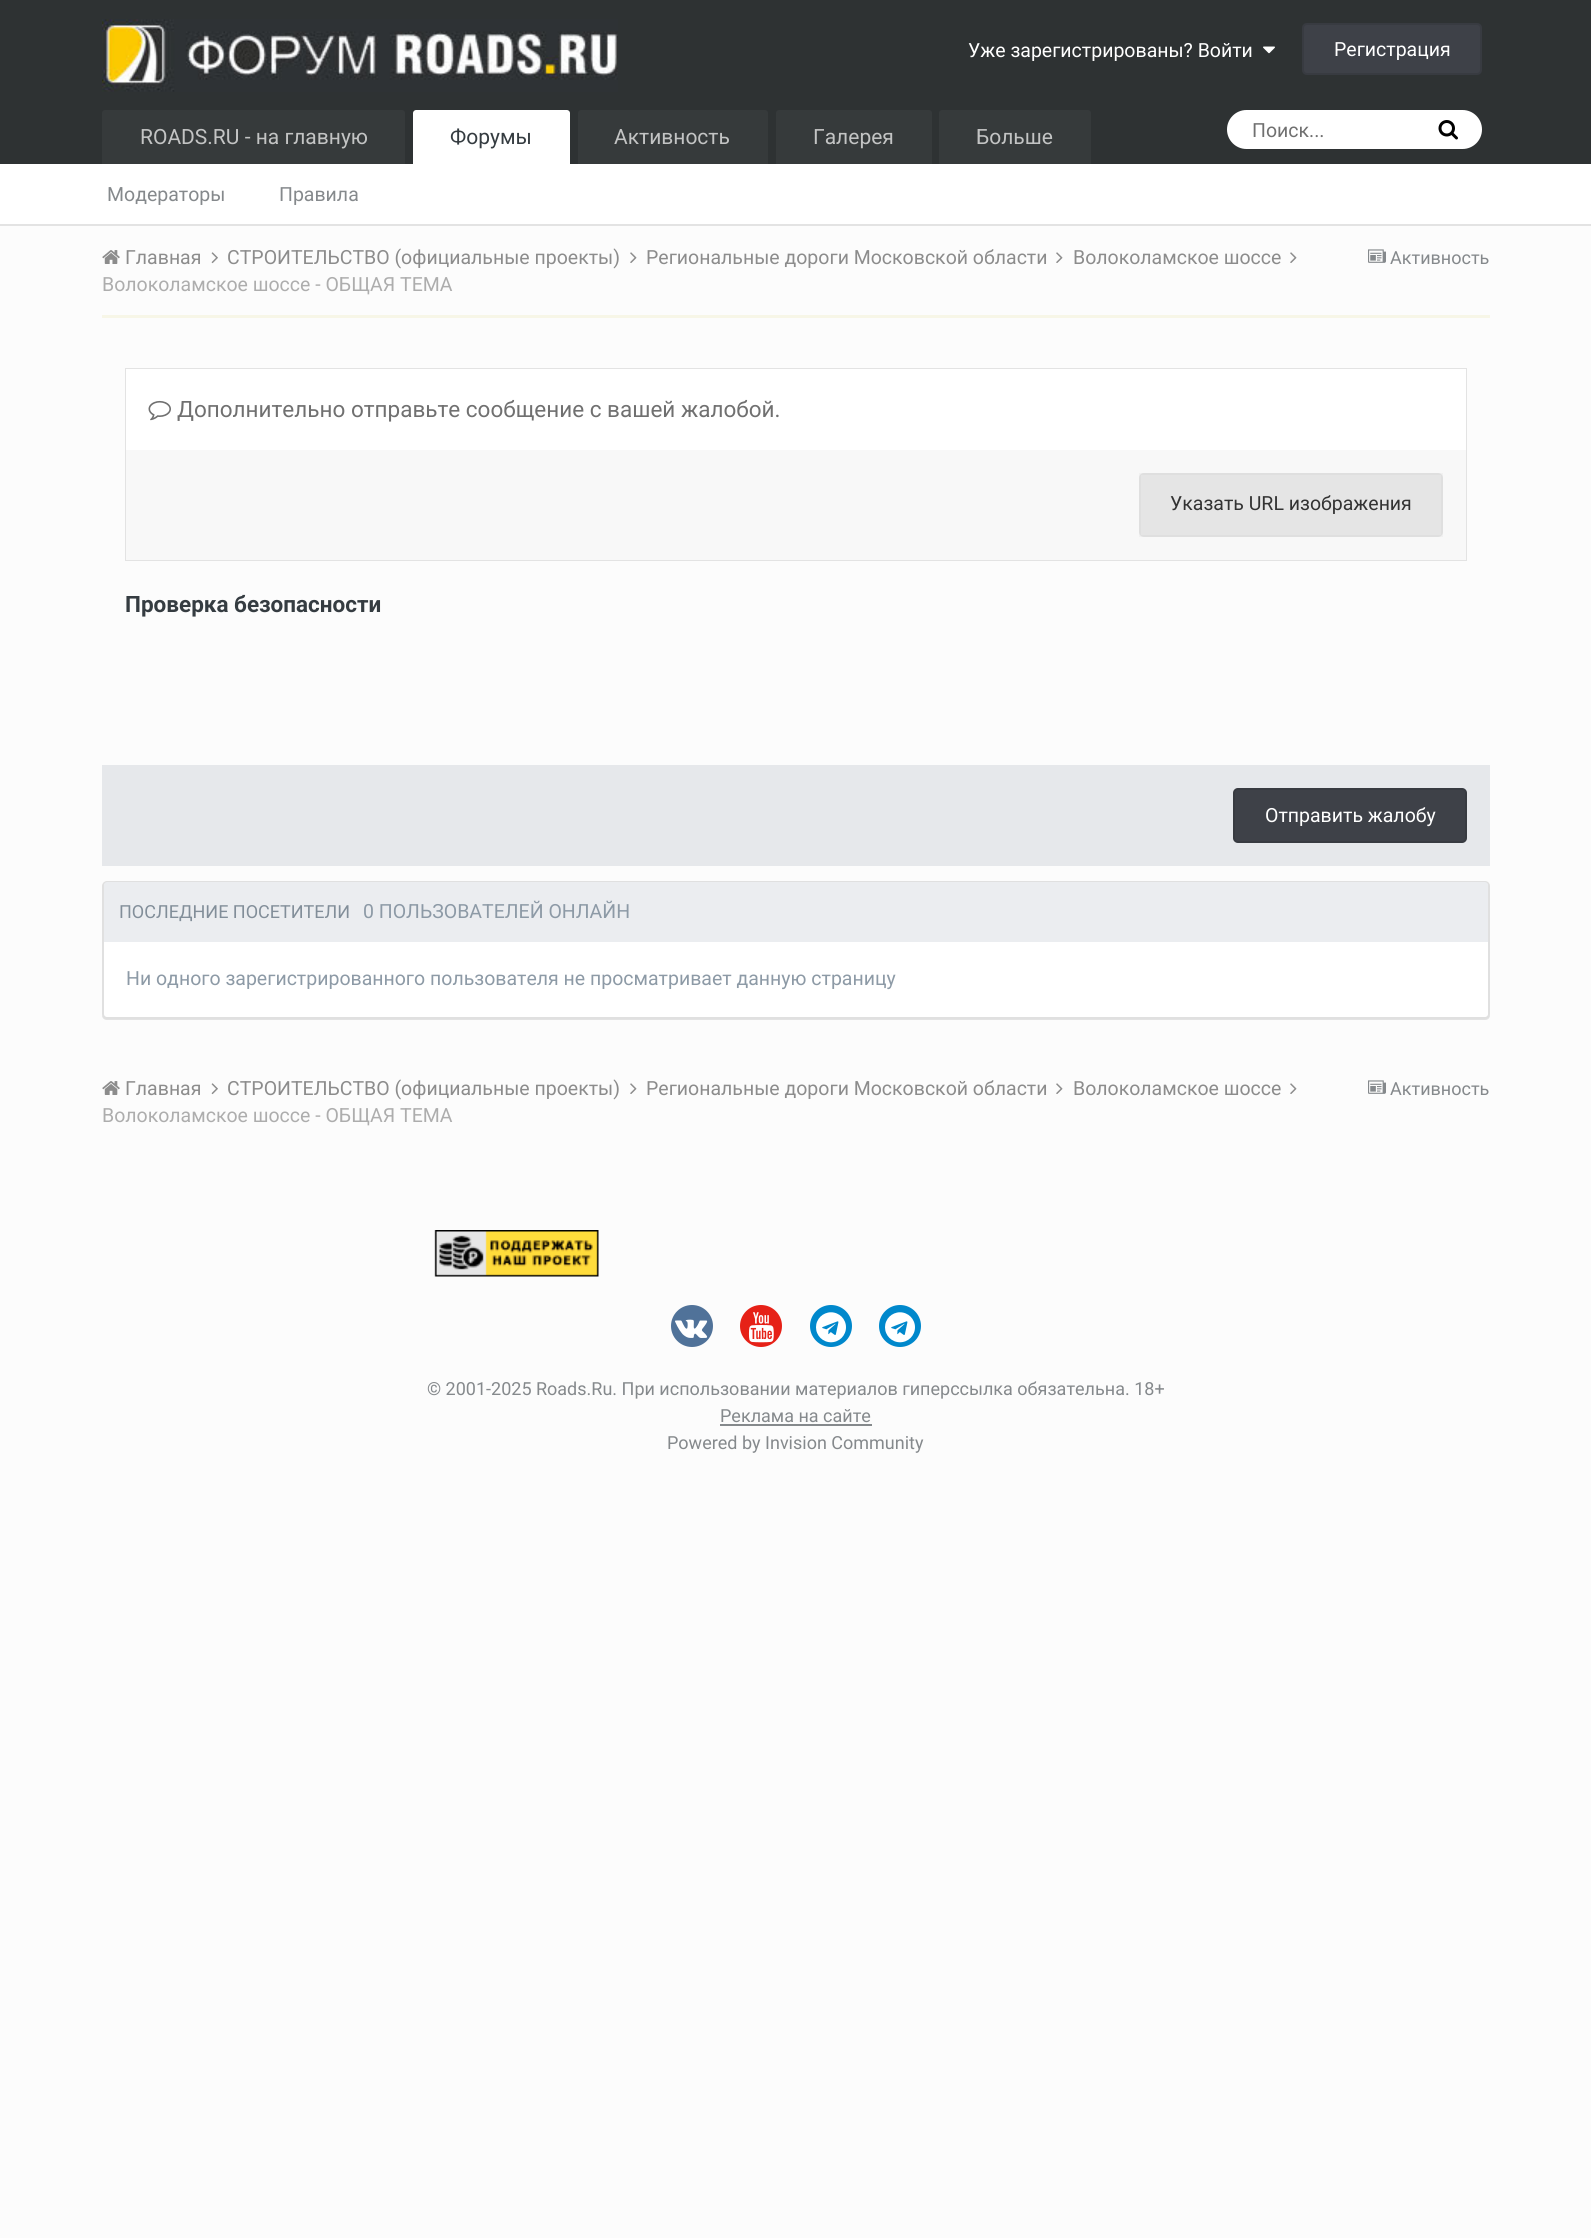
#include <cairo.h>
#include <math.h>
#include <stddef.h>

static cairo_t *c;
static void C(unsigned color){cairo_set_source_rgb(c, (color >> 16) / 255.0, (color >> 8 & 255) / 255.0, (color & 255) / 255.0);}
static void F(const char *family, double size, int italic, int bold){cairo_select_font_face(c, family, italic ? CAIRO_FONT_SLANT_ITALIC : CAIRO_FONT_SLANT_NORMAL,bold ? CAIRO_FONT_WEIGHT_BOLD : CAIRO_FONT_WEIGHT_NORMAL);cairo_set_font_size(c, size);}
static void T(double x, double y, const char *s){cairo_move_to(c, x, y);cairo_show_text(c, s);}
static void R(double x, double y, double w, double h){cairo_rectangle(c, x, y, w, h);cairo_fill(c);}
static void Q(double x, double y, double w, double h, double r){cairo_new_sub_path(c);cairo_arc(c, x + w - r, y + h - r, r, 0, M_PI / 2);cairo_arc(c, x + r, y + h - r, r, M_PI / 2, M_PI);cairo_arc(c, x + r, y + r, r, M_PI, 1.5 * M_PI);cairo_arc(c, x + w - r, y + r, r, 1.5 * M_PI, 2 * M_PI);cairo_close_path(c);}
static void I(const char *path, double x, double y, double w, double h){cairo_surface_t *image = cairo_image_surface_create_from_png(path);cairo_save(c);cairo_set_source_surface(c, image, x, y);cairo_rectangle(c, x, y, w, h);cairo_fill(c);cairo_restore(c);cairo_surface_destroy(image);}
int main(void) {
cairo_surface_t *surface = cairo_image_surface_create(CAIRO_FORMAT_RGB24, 1591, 2238);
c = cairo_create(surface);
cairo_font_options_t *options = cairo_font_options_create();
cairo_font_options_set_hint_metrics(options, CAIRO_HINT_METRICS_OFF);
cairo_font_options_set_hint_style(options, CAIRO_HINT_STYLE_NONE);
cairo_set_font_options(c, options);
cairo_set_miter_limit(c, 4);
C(0xfcfcfc);
cairo_paint(c);
C(0xe3e3e3);
R(0,224,1591,2);
C(0x2e3233);
R(0,0,1591,164);
I("1.png",102,19,516,73);
F("Roboto",19.5,0,0);
C(0xffffff);
T(968,57,"Уже зарегистрированы? Войти");
I("2.png",1263,46,12,8);
C(0x3e4148);
Q(1302,23,180,52,5);
cairo_fill(c);
Q(1303,24,178,50,4);
cairo_set_source_rgba(c,0,0,0,0.1);
cairo_stroke(c);
C(0xffffff);
T(1334,56,"Регистрация");
R(0,164,1591,60);
cairo_new_path(c);
cairo_move_to(c,416,110);
cairo_line_to(c,567,110);
cairo_curve_to(c,568.5,110,570,111.5,570,113);
cairo_line_to(c,570,164);
cairo_line_to(c,413,164);
cairo_line_to(c,413,113);
cairo_curve_to(c,413,111.5,414.5,110,416,110);
cairo_close_path(c);
cairo_fill(c);
F("Roboto",21,0,0);
C(0x353c41);
T(450,144,"Форумы");
F("Roboto",19.5,0,0);
C(0x85898c);
T(107,201,"Модераторы");
T(279,201,"Правила");
C(0x363a3b);
cairo_new_path(c);
cairo_move_to(c,105,110);
cairo_line_to(c,402,110);
cairo_curve_to(c,403.5,110,405,111.5,405,113);
cairo_line_to(c,405,164);
cairo_line_to(c,102,164);
cairo_line_to(c,102,113);
cairo_curve_to(c,102,111.5,103.5,110,105,110);
cairo_close_path(c);
cairo_fill(c);
F("Roboto",21,0,0);
C(0xc3c4c4);
T(140,144,"ROADS.RU - на главную");
C(0x363a3b);
cairo_new_path(c);
cairo_move_to(c,581,110);
cairo_line_to(c,765,110);
cairo_curve_to(c,766.5,110,768,111.5,768,113);
cairo_line_to(c,768,164);
cairo_line_to(c,578,164);
cairo_line_to(c,578,113);
cairo_curve_to(c,578,111.5,579.5,110,581,110);
cairo_close_path(c);
cairo_fill(c);
C(0xc3c4c4);
T(614,144,"Активность");
C(0x363a3b);
cairo_new_path(c);
cairo_move_to(c,779,110);
cairo_line_to(c,929,110);
cairo_curve_to(c,930.5,110,932,111.5,932,113);
cairo_line_to(c,932,164);
cairo_line_to(c,776,164);
cairo_line_to(c,776,113);
cairo_curve_to(c,776,111.5,777.5,110,779,110);
cairo_close_path(c);
cairo_fill(c);
C(0xc3c4c4);
T(813,144,"Галерея");
C(0x363a3b);
cairo_new_path(c);
cairo_move_to(c,942,110);
cairo_line_to(c,1088,110);
cairo_curve_to(c,1089.5,110,1091,111.5,1091,113);
cairo_line_to(c,1091,164);
cairo_line_to(c,939,164);
cairo_line_to(c,939,113);
cairo_curve_to(c,939,111.5,940.5,110,942,110);
cairo_close_path(c);
cairo_fill(c);
C(0xc3c4c4);
T(976,144,"Больше");
C(0xffffff);
Q(1227,110,255,39,19.5);
cairo_fill(c);
F("Roboto",19.5,0,0);
C(0x707070);
T(1252,137,"Поиск...");
I("3.png",1438,120,20,20);
I("4.png",102,250,18,14);
C(0x8c8c8c);
T(125,264,"Главная");
I("5.png",211,252,7,12);
T(227,264,"СТРОИТЕЛЬСТВО (официальные проекты)");
I("6.png",630,252,7,11);
T(646,264,"Региональные дороги Московской области");
I("6.png",1056,252,7,11);
T(1073,264,"Волоколамское шоссе");
I("6.png",1290,252,7,11);
C(0xadadad);
T(102,291,"Волоколамское шоссе - ОБЩАЯ ТЕМА");
I("7.png",1368,249,18,14);
F("Roboto",18,0,0);
C(0x85898c);
T(1390,264,"Активность");
C(0xf7f6e7);
R(102,315,1388,3);
C(0xe3e3e3);
R(125,368,1342,193);
C(0xffffff);
R(126,369,1340,81);
I("8.png",148,400,23,21);
F("Roboto",22.5,0,0);
C(0x707070);
T(177,417,"Дополнительно отправьте сообщение с вашей жалобой.");
C(0xf8f8f8);
R(126,450,1340,110);
C(0xe5e5e5);
Q(1139,473,304,64,5);
cairo_fill(c);
cairo_rectangle(c,1140,474,302,62);
cairo_set_source_rgba(c,0,0,0,0.03);
cairo_stroke(c);
F("Roboto",19.5,0,0);
C(0x333333);
T(1170,510,"Указать URL изображения");
F("Roboto",22.5,0,1);
C(0x353c41);
T(125,612,"Проверка безопасности");
C(0xe6e8eb);
R(102,765,1388,101);
C(0x3e4148);
Q(1233,788,234,55,5);
cairo_fill(c);
Q(1234,789,232,53,4);
cairo_set_source_rgba(c,0,0,0,0.1);
cairo_stroke(c);
F("Roboto",19.5,0,0);
C(0xffffff);
T(1265,822,"Отправить жалобу");
C(0xe3e3e3);
cairo_new_path(c);
cairo_move_to(c,102,1014);
cairo_line_to(c,102,1015);
cairo_curve_to(c,102,1018,104,1020,107,1020);
cairo_line_to(c,1485,1020);
cairo_curve_to(c,1488,1020,1490,1018,1490,1015);
cairo_line_to(c,1490,887);
cairo_line_to(c,1489,885);
cairo_line_to(c,1490,1014);
cairo_curve_to(c,1490,1016,1487,1018,1485,1018);
cairo_line_to(c,106,1018);
cairo_curve_to(c,104,1018,102,1016,102,1014);
cairo_close_path(c);
cairo_fill(c);
C(0xffffff);
Q(103,882,1386,136,4);
cairo_fill_preserve(c);
C(0xe0e0e0);
cairo_stroke(c);
C(0xebedf0);
cairo_new_path(c);
cairo_move_to(c,107,882);
cairo_line_to(c,1485,882);
cairo_curve_to(c,1486.5,882,1488,883.5,1488,885);
cairo_line_to(c,1488,942);
cairo_line_to(c,104,942);
cairo_line_to(c,104,885);
cairo_curve_to(c,104,883.5,105.5,882,107,882);
cairo_close_path(c);
cairo_fill(c);
F("Roboto",18,0,0);
C(0x828e99);
T(119,918,"ПОСЛЕДНИЕ ПОСЕТИТЕЛИ");
F("Roboto",19.5,0,0);
C(0x8d9aa6);
T(363,918,"0 ПОЛЬЗОВАТЕЛЕЙ ОНЛАЙН");
T(126,985,"Ни одного зарегистрированного пользователя не просматривает данную страницу");
I("4.png",102,1081,18,14);
C(0x8c8c8c);
T(125,1095,"Главная");
I("5.png",211,1083,7,12);
T(227,1095,"СТРОИТЕЛЬСТВО (официальные проекты)");
I("6.png",630,1083,7,11);
T(646,1095,"Региональные дороги Московской области");
I("6.png",1056,1083,7,11);
T(1073,1095,"Волоколамское шоссе");
I("6.png",1290,1083,7,11);
C(0xadadad);
T(102,1122,"Волоколамское шоссе - ОБЩАЯ ТЕМА");
I("7.png",1368,1080,18,14);
F("Roboto",18,0,0);
C(0x85898c);
T(1390,1095,"Активность");
I("9.png",434,1230,165,47);
C(0x507299);
cairo_arc(c,692,1326,21,0,2 * M_PI);
cairo_fill(c);
I("10.png",675,1319,33,19);
C(0xe62117);
cairo_arc(c,761,1326,21,0,2 * M_PI);
cairo_fill(c);
I("11.png",748,1312,26,31);
C(0x0088cc);
cairo_arc(c,831,1326,21,0,2 * M_PI);
cairo_fill(c);
I("12.png",816,1312,30,31);
cairo_arc(c,900,1326,21,0,2 * M_PI);
cairo_fill(c);
I("12.png",885,1312,30,31);
C(0x85898c);
T(427,1395,"© 2001-2025 Roads.Ru. При использовании материалов гиперссылка обязательна. 18+");
T(720,1422,"Реклама на сайте");
R(720,1424,152,2);
T(667,1449,"Powered by Invision Community");
cairo_surface_write_to_png(surface, "o.png");
cairo_font_options_destroy(options);
cairo_destroy(c);
cairo_surface_destroy(surface);
return 0;
}
